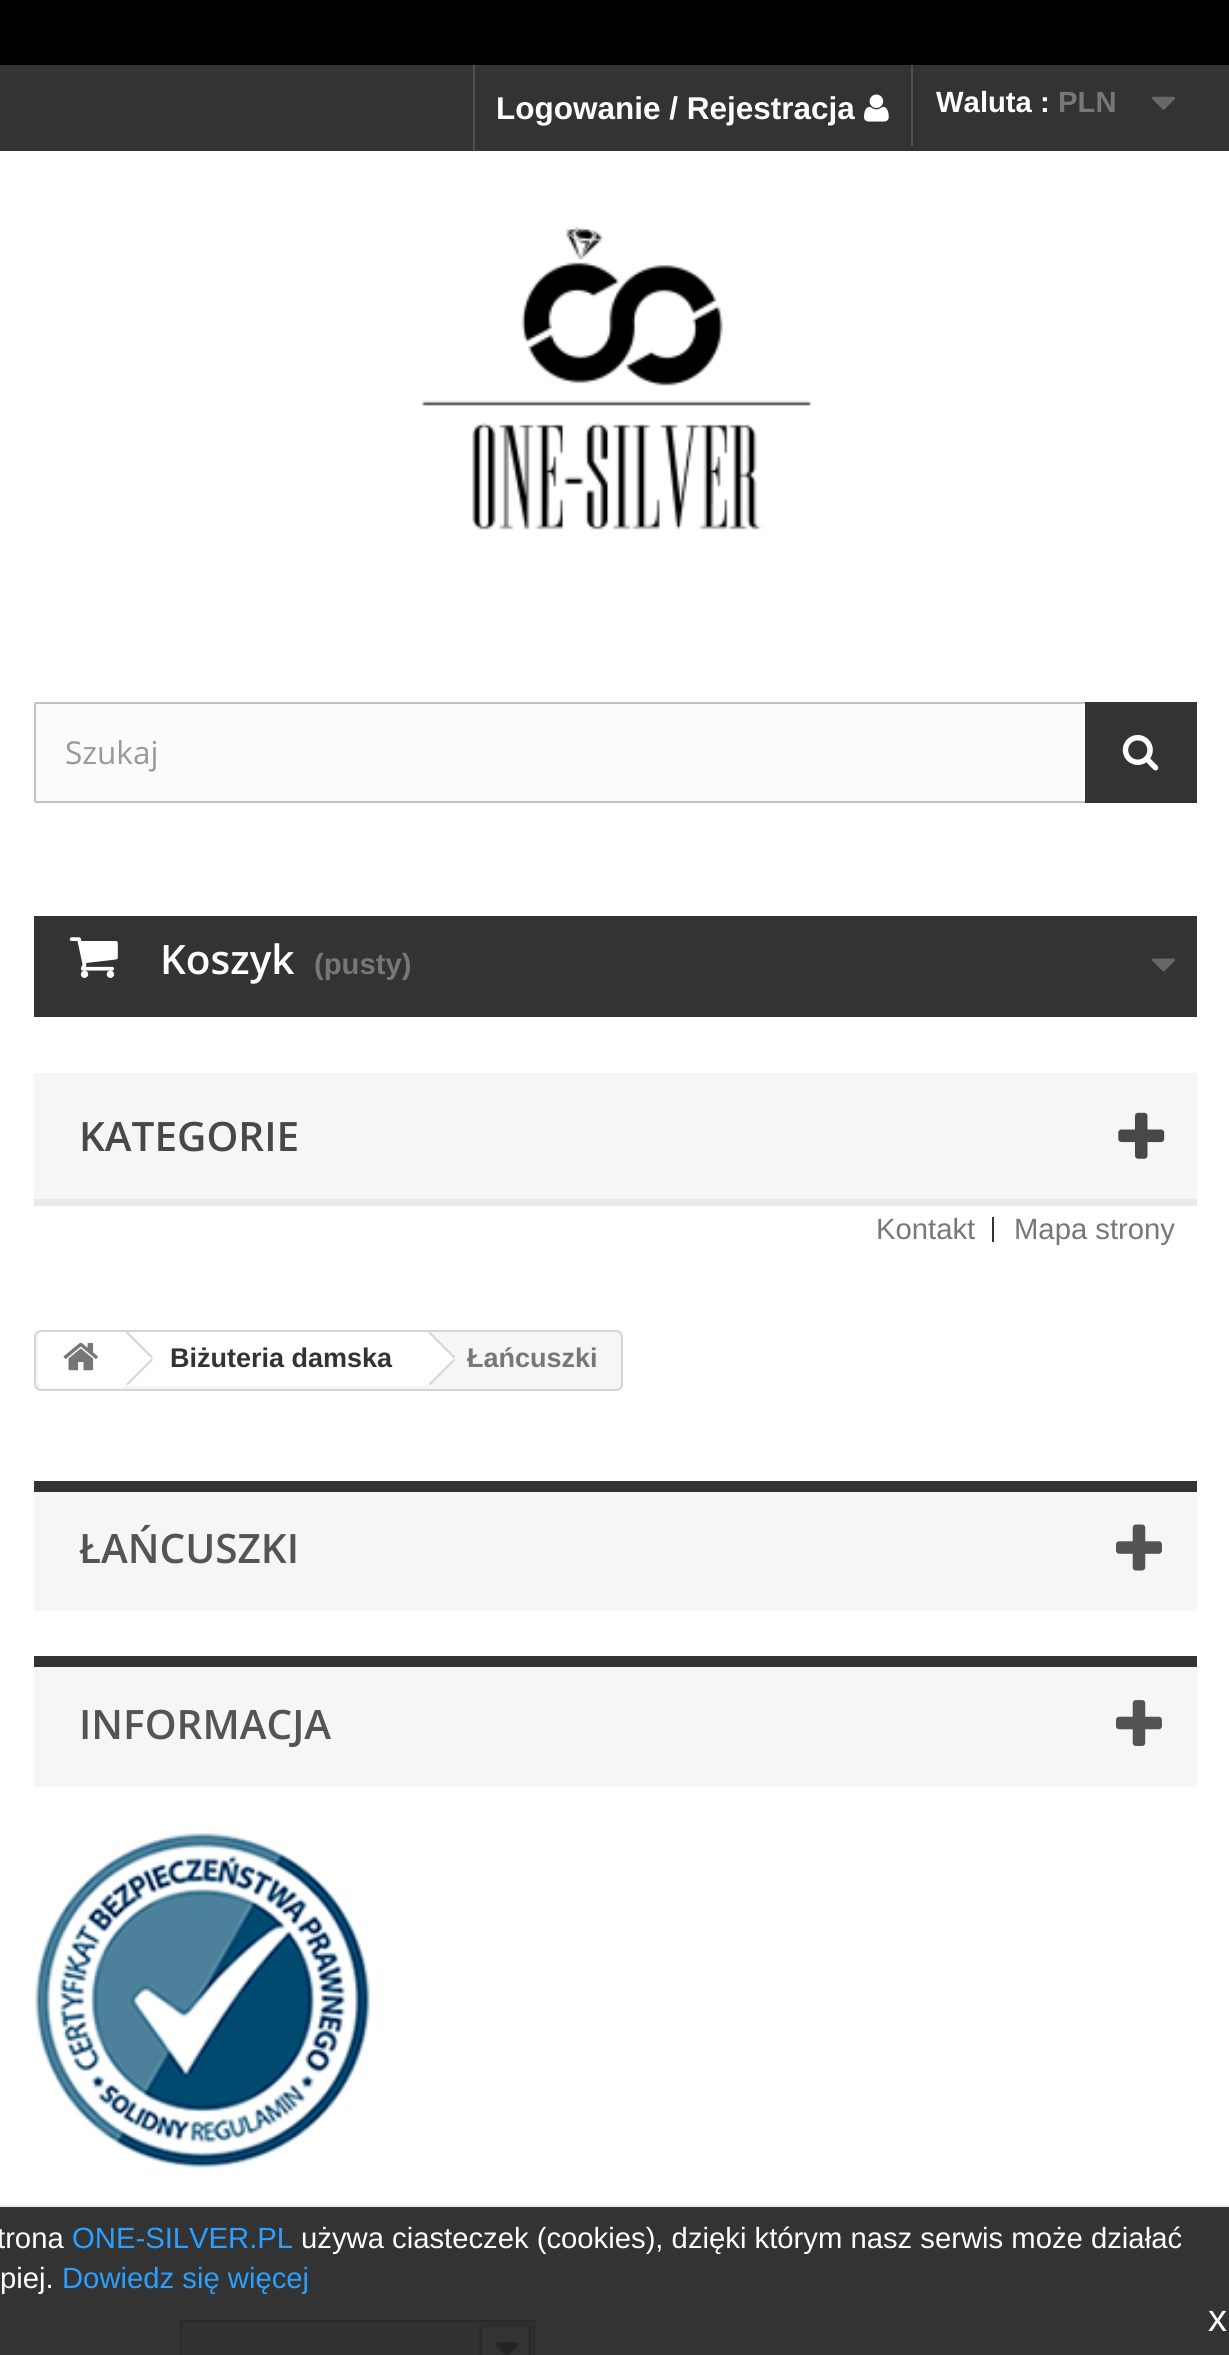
#include <cairo.h>
#include <math.h>
#include <stddef.h>

static cairo_t *c;
static void C(unsigned color){cairo_set_source_rgb(c, (color >> 16) / 255.0, (color >> 8 & 255) / 255.0, (color & 255) / 255.0);}
static void F(const char *family, double size, int italic, int bold){cairo_select_font_face(c, family, italic ? CAIRO_FONT_SLANT_ITALIC : CAIRO_FONT_SLANT_NORMAL,bold ? CAIRO_FONT_WEIGHT_BOLD : CAIRO_FONT_WEIGHT_NORMAL);cairo_set_font_size(c, size);}
static void T(double x, double y, const char *s){cairo_move_to(c, x, y);cairo_show_text(c, s);}
static void R(double x, double y, double w, double h){cairo_rectangle(c, x, y, w, h);cairo_fill(c);}
static void Q(double x, double y, double w, double h, double r){cairo_new_sub_path(c);cairo_arc(c, x + w - r, y + h - r, r, 0, M_PI / 2);cairo_arc(c, x + r, y + h - r, r, M_PI / 2, M_PI);cairo_arc(c, x + r, y + r, r, M_PI, 1.5 * M_PI);cairo_arc(c, x + w - r, y + r, r, 1.5 * M_PI, 2 * M_PI);cairo_close_path(c);}
static void S(double x, double y, double w, double h, double r, double blur, double alpha){cairo_push_group_with_content(c, CAIRO_CONTENT_ALPHA);cairo_set_operator(c, CAIRO_OPERATOR_SOURCE);for (int i = 15; i >= -15 && fmin(w, h) + blur * i / 3 > 0; i -= 2) {double e = blur * i / 6;cairo_set_source_rgba(c, 0, 0, 0, alpha * erfc((i - 1) / 8.5) / 2);Q(x - e, y - e, w + 2 * e, h + 2 * e, fmax(0, fmin(r + e + blur * .6, fmin(w, h) / 2 + e)));cairo_fill(c);}cairo_pattern_t *soft = cairo_pop_group(c);cairo_mask(c, soft);cairo_pattern_destroy(soft);}
static void I(const char *path, double x, double y, double w, double h){cairo_surface_t *image = cairo_image_surface_create_from_png(path);cairo_save(c);cairo_set_source_surface(c, image, x, y);cairo_rectangle(c, x, y, w, h);cairo_fill(c);cairo_restore(c);cairo_surface_destroy(image);}
int main(void) {
cairo_surface_t *surface = cairo_image_surface_create(CAIRO_FORMAT_RGB24, 1229, 2355);
c = cairo_create(surface);
cairo_font_options_t *options = cairo_font_options_create();
cairo_font_options_set_hint_metrics(options, CAIRO_HINT_METRICS_OFF);
cairo_font_options_set_hint_style(options, CAIRO_HINT_STYLE_NONE);
cairo_set_font_options(c, options);
cairo_set_miter_limit(c, 4);
C(0xffffff);
cairo_paint(c);
C(0x000000);
R(0,0,1229,65);
C(0x333333);
R(0,65,1229,86);
C(0x515151);
R(473,65,2,86);
F("Liberation Sans",31.5,0,1);
C(0xffffff);
T(496,119,"Logowanie / Rejestracja");
I("1.png",864,94,25,28);
C(0x515151);
R(911,65,2,81);
F("Liberation Sans",29.25,0,1);
C(0xffffff);
T(936,112,"Waluta :");
C(0x777777);
T(1058,112,"PLN");
I("2.png",1152,96,23,14);
I("3.png",421,226,391,304);
C(0xfbfbfb);
Q(35,703,1161,99,1);
cairo_fill_preserve(c);
C(0xc2c2c2);
cairo_stroke(c);
F("Open Sans",31.5,0,0);
C(0x999999);
T(65,764,"Szukaj");
C(0x333333);
R(1085,702,112,101);
I("4.png",1122,734,37,37);
R(34,916,1163,101);
I("5.png",69,937,49,41);
F("Open Sans SemiBold",40.5,0,0);
C(0xffffff);
T(160,974,"Koszyk");
F("Liberation Sans",29.25,0,1);
C(0x777777);
T(314,974,"(pusty)");
I("6.png",1152,958,23,14);
C(0xf6f6f6);
R(34,1073,1163,126);
C(0xe9e9e9);
R(34,1199,1163,7);
F("Open Sans SemiBold",40.5,0,0);
C(0x484848);
T(79,1151,"KATEGORIE");
I("7.png",1118,1112,47,47);
F("Liberation Sans",29.25,0,0);
C(0x777777);
T(876,1239,"Kontakt");
C(0x333333);
R(992,1217,2,25);
C(0x777777);
T(1014,1239,"Mapa strony");
C(0xf6f6f6);
Q(35,1331,587,59,6);
cairo_fill_preserve(c);
C(0xd6d4d4);
cairo_stroke(c);
C(0xffffff);
cairo_new_path(c);
cairo_move_to(c,45,1332);
cairo_line_to(c,124,1332);
cairo_line_to(c,124,1388);
cairo_line_to(c,45,1388);
cairo_curve_to(c,41,1388,38,1385,38,1381);
cairo_line_to(c,38,1339);
cairo_curve_to(c,38,1335,41,1332,45,1332);
cairo_close_path(c);
cairo_fill(c);
I("8.png",63,1342,35,29);
R(124,1332,301,54);
C(0xd6d4d4);
cairo_new_path(c);
cairo_move_to(c,127.5,1331.5);
cairo_line_to(c,153,1357);
cairo_line_to(c,151.5,1358.5);
cairo_line_to(c,126,1333);
cairo_close_path(c);
cairo_fill(c);
cairo_new_path(c);
cairo_move_to(c,151.5,1358.5);
cairo_line_to(c,153,1360);
cairo_line_to(c,127.5,1385.5);
cairo_line_to(c,126,1384);
cairo_close_path(c);
cairo_fill(c);
F("Liberation Sans",27,0,1);
C(0x333333);
T(170,1367,"Biżuteria damska");
C(0xffffff);
cairo_new_path(c);
cairo_move_to(c,432,1333);
cairo_line_to(c,431,1332);
cairo_line_to(c,426,1332);
cairo_line_to(c,425,1333);
cairo_line_to(c,403,1355);
cairo_curve_to(c,401,1357,401,1360,403,1362);
cairo_line_to(c,425,1384);
cairo_curve_to(c,427,1386,430,1386,432,1384);
cairo_line_to(c,454,1362);
cairo_curve_to(c,456,1360,456,1357,454,1355);
cairo_close_path(c);
cairo_fill(c);
C(0xd6d4d4);
cairo_new_path(c);
cairo_move_to(c,430,1331.5);
cairo_line_to(c,455.5,1357);
cairo_line_to(c,454,1358.5);
cairo_line_to(c,428.5,1333);
cairo_close_path(c);
cairo_fill(c);
cairo_new_path(c);
cairo_move_to(c,454,1358.5);
cairo_line_to(c,455.5,1360);
cairo_line_to(c,430,1385.5);
cairo_line_to(c,428.5,1384);
cairo_close_path(c);
cairo_fill(c);
C(0x777777);
T(467,1367,"Łańcuszki");
C(0xf6f6f6);
R(34,1492,1163,119);
C(0x333333);
R(34,1481,1163,11);
F("Open Sans SemiBold",40.5,0,0);
C(0x555454);
T(79,1563,"ŁAŃCUSZKI");
I("9.png",1116,1524,46,47);
C(0xf6f6f6);
R(34,1667,1163,120);
C(0x333333);
R(34,1656,1163,11);
C(0x555454);
T(79,1739,"INFORMACJA");
I("10.png",1116,1700,46,46);
I("11.png",35,1833,335,335);
I("12.png",180,2319,23,36);
I("13.png",202,2320,334,35);
cairo_save(c);
cairo_set_fill_rule(c,CAIRO_FILL_RULE_EVEN_ODD);
cairo_new_path(c);
cairo_move_to(c,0,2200);
cairo_line_to(c,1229,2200);
cairo_line_to(c,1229,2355);
cairo_line_to(c,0,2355);
cairo_close_path(c);
cairo_move_to(c,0,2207);
cairo_line_to(c,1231,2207);
cairo_line_to(c,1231,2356);
cairo_line_to(c,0,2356);
cairo_close_path(c);
cairo_clip(c);
C(0xcccccc);
S(0,2207,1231,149,0,2,1);
cairo_restore(c);
cairo_set_source_rgba(c,0,0,0,0.8);
R(0,2207,1229,148);
F("Liberation Sans",29.25,0,0);
C(0xffffff);
T(-3,2248,"trona");
C(0x2c9ffd);
T(72,2248,"ONE-SILVER.PL");
C(0xffffff);
T(301,2248,"używa ciasteczek (cookies), dzięki którym nasz serwis może działać");
T(0,2288,"piej.");
C(0x2c9ffd);
T(62,2288,"Dowiedz się więcej");
F("Liberation Sans",38,0,0);
C(0xffffff);
T(1208,2331,"x");
cairo_surface_write_to_png(surface, "o.png");
cairo_font_options_destroy(options);
cairo_destroy(c);
cairo_surface_destroy(surface);
return 0;
}
